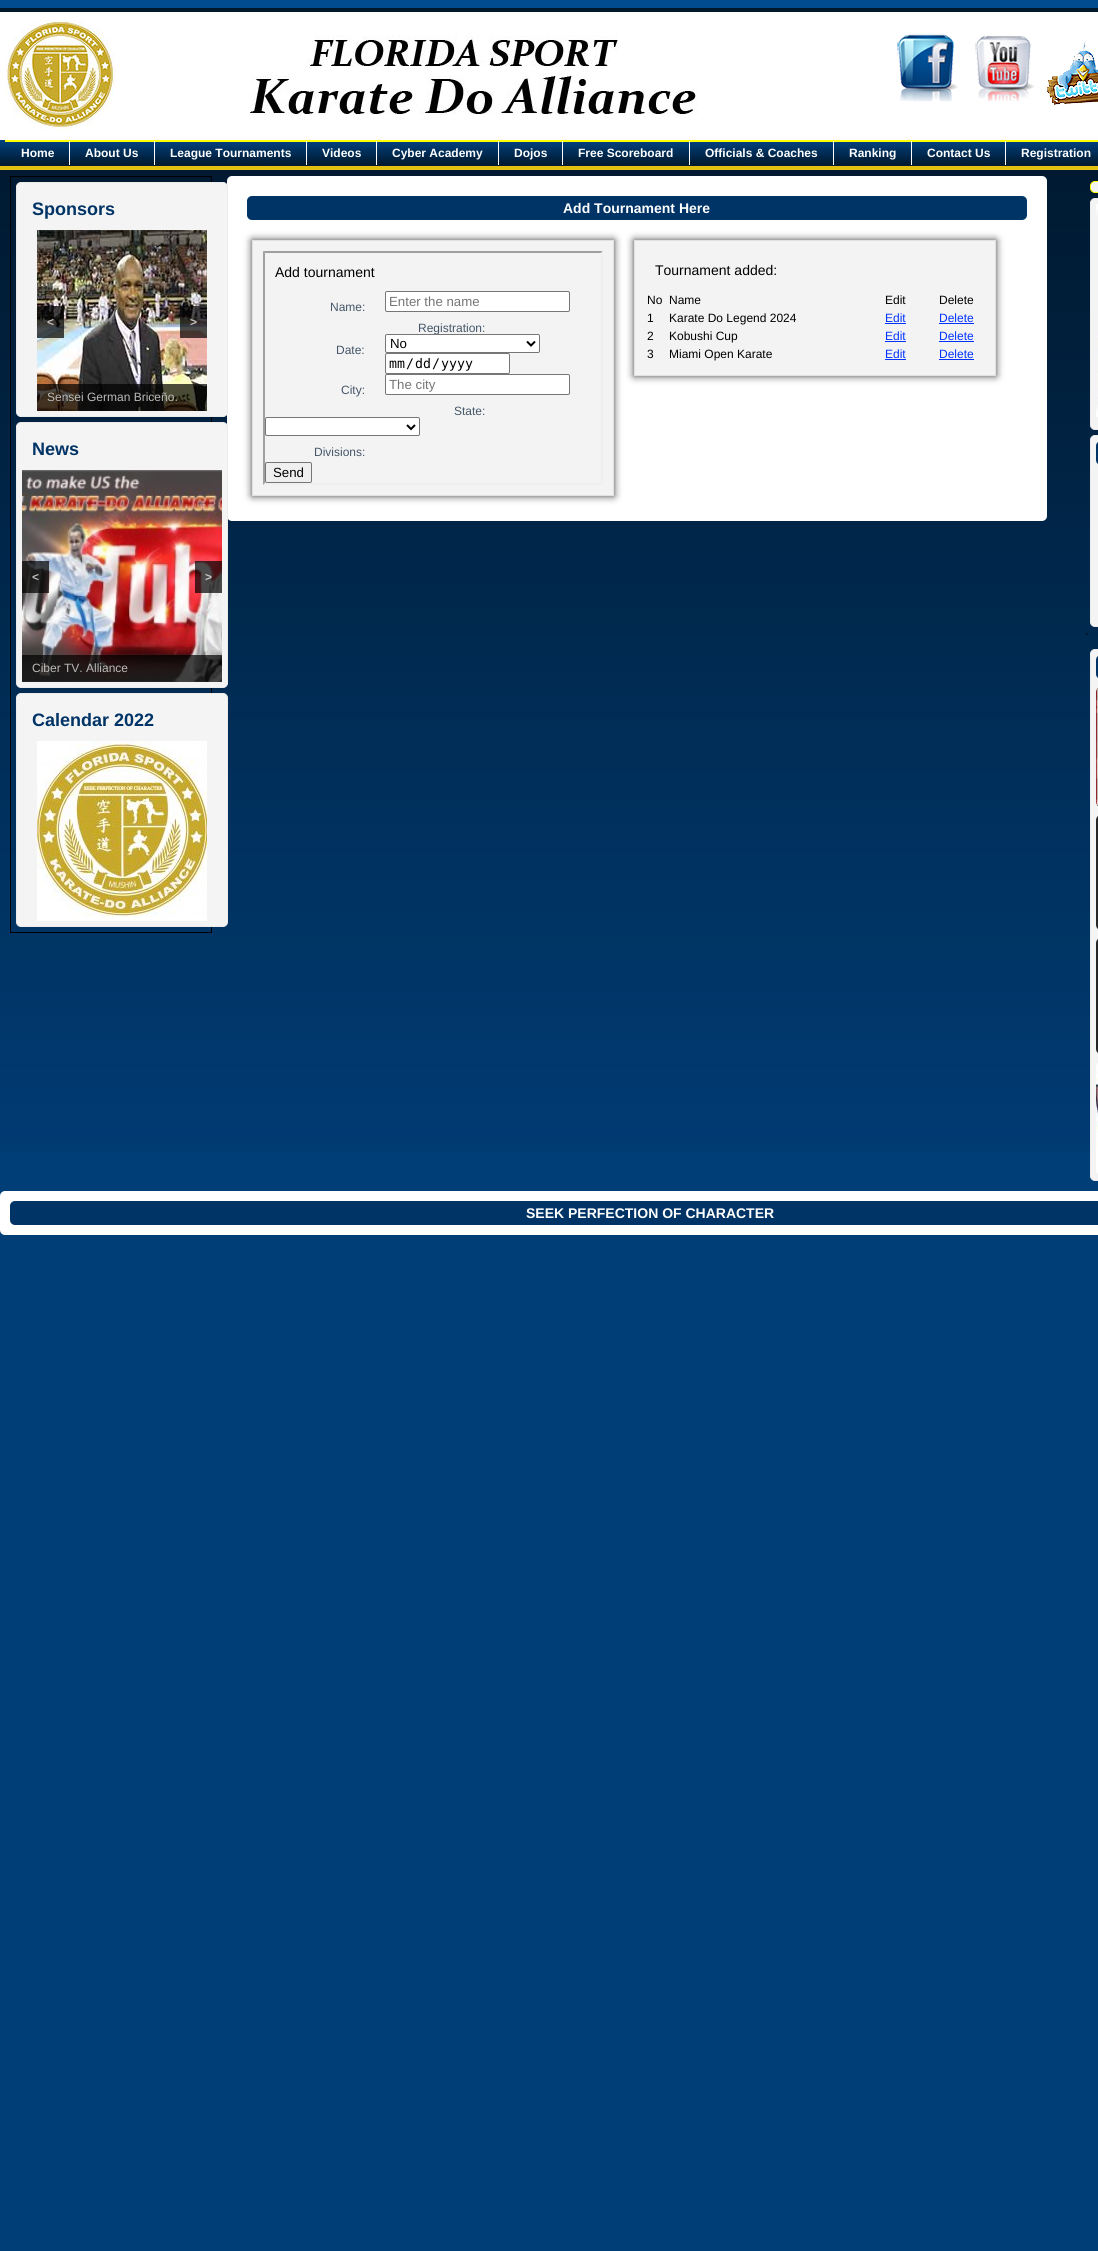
#include <cairo.h>
#include <math.h>
#include <stddef.h>

static cairo_t *c;
static void C(unsigned color){cairo_set_source_rgb(c, (color >> 16) / 255.0, (color >> 8 & 255) / 255.0, (color & 255) / 255.0);}
static void F(const char *family, double size, int italic, int bold){cairo_select_font_face(c, family, italic ? CAIRO_FONT_SLANT_ITALIC : CAIRO_FONT_SLANT_NORMAL,bold ? CAIRO_FONT_WEIGHT_BOLD : CAIRO_FONT_WEIGHT_NORMAL);cairo_set_font_size(c, size);}
static void T(double x, double y, const char *s){cairo_move_to(c, x, y);cairo_show_text(c, s);}
static void R(double x, double y, double w, double h){cairo_rectangle(c, x, y, w, h);cairo_fill(c);}
static void Q(double x, double y, double w, double h, double r){cairo_new_sub_path(c);cairo_arc(c, x + w - r, y + h - r, r, 0, M_PI / 2);cairo_arc(c, x + r, y + h - r, r, M_PI / 2, M_PI);cairo_arc(c, x + r, y + r, r, M_PI, 1.5 * M_PI);cairo_arc(c, x + w - r, y + r, r, 1.5 * M_PI, 2 * M_PI);cairo_close_path(c);}
static void S(double x, double y, double w, double h, double r, double blur, double alpha){cairo_push_group_with_content(c, CAIRO_CONTENT_ALPHA);cairo_set_operator(c, CAIRO_OPERATOR_SOURCE);for (int i = 15; i >= -15 && fmin(w, h) + blur * i / 3 > 0; i -= 2) {double e = blur * i / 6;cairo_set_source_rgba(c, 0, 0, 0, alpha * erfc((i - 1) / 8.5) / 2);Q(x - e, y - e, w + 2 * e, h + 2 * e, fmax(0, fmin(r + e + blur * .6, fmin(w, h) / 2 + e)));cairo_fill(c);}cairo_pattern_t *soft = cairo_pop_group(c);cairo_mask(c, soft);cairo_pattern_destroy(soft);}
static void I(const char *path, double x, double y, double w, double h){cairo_surface_t *image = cairo_image_surface_create_from_png(path);cairo_save(c);cairo_set_source_surface(c, image, x, y);cairo_rectangle(c, x, y, w, h);cairo_fill(c);cairo_restore(c);cairo_surface_destroy(image);}
int main(void) {
cairo_surface_t *surface = cairo_image_surface_create(CAIRO_FORMAT_RGB24, 1098, 2251);
c = cairo_create(surface);
cairo_font_options_t *options = cairo_font_options_create();
cairo_font_options_set_hint_metrics(options, CAIRO_HINT_METRICS_OFF);
cairo_font_options_set_hint_style(options, CAIRO_HINT_STYLE_NONE);
cairo_set_font_options(c, options);
cairo_set_miter_limit(c, 4);
C(0x003e77);
cairo_paint(c);
I("1.png",0,0,1098,1152);
I("2.png",5,20,110,110);
I("3.png",218,35,480,80);
I("4.png",897,33,61,69);
I("5.png",975,35,59,67);
I("6.png",1047,40,51,65);
C(0xffff00);
R(5,140,1093,2);
C(0xffffff);
R(69,141,1,24);
F("Liberation Sans",12,0,1);
T(21,157,"Home");
R(154,141,1,24);
T(85,157,"About Us");
R(306,141,1,24);
T(170,157,"League Tournaments");
R(376,141,1,24);
T(322,157,"Videos");
R(498,141,1,24);
T(392,157,"Cyber Academy");
R(562,141,1,24);
T(514,157,"Dojos");
R(689,141,1,24);
T(578,157,"Free Scoreboard");
R(833,141,1,24);
T(705,157,"Officials & Coaches");
R(911,141,1,24);
T(849,157,"Ranking");
R(1005,141,1,24);
T(927,157,"Contact Us");
T(1021,157,"Registration");
cairo_rectangle(c,10.5,176.5,201,756);
C(0x000000);
cairo_set_line_width(c,1);
cairo_stroke(c);
C(0xffffff);
Q(227,176,820,345,5);
cairo_fill(c);
C(0xf4f4f4);
Q(16.5,182.5,211,234,4.5);
cairo_fill_preserve(c);
C(0xececec);
cairo_stroke(c);
F("Liberation Sans",18,0,1);
C(0x003366);
T(32,215,"Sponsors");
I("7.png",37,230,170,181);
cairo_set_source_rgba(c,0,0,0,0.7);
R(37,306,27,32);
F("Liberation Sans",12,0,1);
C(0xc2c1c0);
T(47,326,"<");
cairo_set_source_rgba(c,0,0,0,0.7);
R(180,306,27,32);
C(0xc2c1c0);
T(190,326,">");
cairo_set_source_rgba(c,0,0,0,0.7);
R(37,384,170,27);
F("Liberation Sans",12,0,0);
C(0xbbbab9);
T(47,401,"Sensei German Briceño.");
C(0xf4f4f4);
Q(16.5,422.5,211,265,4.5);
cairo_fill_preserve(c);
C(0xececec);
cairo_stroke(c);
F("Liberation Sans",18,0,1);
C(0x003366);
T(32,455,"News");
I("8.png",22,470,200,212);
cairo_set_source_rgba(c,0,0,0,0.7);
R(22,561,27,32);
F("Liberation Sans",12,0,1);
C(0xbbbab9);
T(32,581,"<");
cairo_set_source_rgba(c,0,0,0,0.7);
R(195,561,27,32);
C(0xc9c8c8);
T(205,581,">");
cairo_set_source_rgba(c,0,0,0,0.7);
R(22,655,200,27);
F("Liberation Sans",12,0,0);
C(0xbbbab9);
T(32,672,"Ciber TV. Alliance");
C(0xf4f4f4);
Q(16.5,693.5,211,233,4.5);
cairo_fill_preserve(c);
C(0xececec);
cairo_stroke(c);
F("Liberation Sans",18,0,1);
C(0x003366);
T(32,726,"Calendar 2022");
I("9.png",37,741,170,180);
Q(247,196,780,24,5);
cairo_fill(c);
F("Liberation Sans",14,0,1);
C(0xffffff);
T(563,213,"Add Tournament Here");
C(0x444444);
S(252,240,362,256,0,4,1);
C(0xf3f3f3);
cairo_rectangle(c,252.5,240.5,361,255);
cairo_fill_preserve(c);
C(0xe1e1e1);
cairo_stroke(c);
C(0x9f9f9f);
cairo_new_path(c);
cairo_move_to(c,263,251);
cairo_line_to(c,603,251);
cairo_line_to(c,601,253);
cairo_line_to(c,265,253);
cairo_close_path(c);
cairo_fill(c);
C(0xefefef);
cairo_new_path(c);
cairo_move_to(c,603,251);
cairo_line_to(c,603,485);
cairo_line_to(c,601,483);
cairo_line_to(c,601,253);
cairo_close_path(c);
cairo_fill(c);
cairo_new_path(c);
cairo_move_to(c,603,485);
cairo_line_to(c,263,485);
cairo_line_to(c,265,483);
cairo_line_to(c,601,483);
cairo_close_path(c);
cairo_fill(c);
C(0x9f9f9f);
cairo_new_path(c);
cairo_move_to(c,263,485);
cairo_line_to(c,263,251);
cairo_line_to(c,265,253);
cairo_line_to(c,265,483);
cairo_close_path(c);
cairo_fill(c);
F("Liberation Sans",14,0,0);
C(0x000000);
T(275,277,"Add tournament");
F("Liberation Sans",12,0,0);
C(0x445668);
T(330,311,"Name:");
C(0xffffff);
Q(385.5,291.5,184,20,1.5);
cairo_fill_preserve(c);
C(0x767676);
cairo_stroke(c);
F("Liberation Sans",13.25,0,0);
C(0x757575);
T(389,306,"Enter the name");
F("Liberation Sans",12,0,0);
C(0x445668);
T(418,332,"Registration:");
C(0xffffff);
Q(385.5,334.5,154,18,1.5);
cairo_fill_preserve(c);
C(0x767676);
cairo_stroke(c);
cairo_new_path(c);
cairo_move_to(c,527,341.5);
cairo_line_to(c,531,345.5);
cairo_line_to(c,535,341.5);
C(0x000000);
cairo_set_line_width(c,2);
cairo_stroke(c);
F("Liberation Sans",13.25,0,0);
T(390,348,"No");
F("Liberation Sans",12,0,0);
C(0x445668);
T(336,354,"Date:");
C(0xffffff);
Q(385.5,353.5,124,20,1.5);
cairo_fill_preserve(c);
C(0x767676);
cairo_set_line_width(c,1);
cairo_stroke(c);
F("DejaVu Sans Mono",13.25,0,0);
C(0x000000);
T(389,368,"mm");
T(406,368,"/");
T(415,368,"dd");
T(432,368,"/");
T(441,368,"yyyy");
F("Liberation Sans",12,0,0);
C(0x445668);
T(341,394,"City:");
C(0xffffff);
Q(385.5,374.5,184,20,1.5);
cairo_fill_preserve(c);
C(0x767676);
cairo_stroke(c);
F("Liberation Sans",13.25,0,0);
C(0x757575);
T(389,389,"The city");
F("Liberation Sans",12,0,0);
C(0x445668);
T(454,415,"State:");
C(0xffffff);
Q(265.5,417.5,154,18,1.5);
cairo_fill_preserve(c);
C(0x767676);
cairo_stroke(c);
cairo_new_path(c);
cairo_move_to(c,407,425);
cairo_line_to(c,411,429);
cairo_line_to(c,415,425);
C(0x000000);
cairo_set_line_width(c,2);
cairo_stroke(c);
C(0x445668);
T(314,456,"Divisions:");
C(0xefefef);
Q(265.5,462.5,46,20,1.5);
cairo_fill_preserve(c);
C(0x767676);
cairo_set_line_width(c,1);
cairo_stroke(c);
F("Liberation Sans",13.25,0,0);
C(0x000000);
T(273,477,"Send");
C(0x444444);
S(634,240,362,136,0,4,1);
C(0xf3f3f3);
cairo_rectangle(c,634.5,240.5,361,135);
cairo_fill_preserve(c);
C(0xe1e1e1);
cairo_stroke(c);
F("Liberation Sans",14,0,0);
C(0x000000);
T(655,275,"Tournament added:");
F("Liberation Sans",12,0,0);
T(647,304,"No");
T(669,304,"Name");
T(885,304,"Edit");
T(939,304,"Delete");
T(647,322,"1");
T(669,322,"Karate Do Legend 2024");
C(0x0033ff);
T(885,322,"Edit");
R(885,323,21,1);
T(939,322,"Delete");
R(939,323,35,1);
C(0x000000);
T(647,340,"2");
T(669,340,"Kobushi Cup");
C(0x0033ff);
T(885,340,"Edit");
R(885,341,21,1);
T(939,340,"Delete");
R(939,341,35,1);
C(0x000000);
T(647,358,"3");
T(669,358,"Miami Open Karate");
C(0x0033ff);
T(885,358,"Edit");
R(885,359,21,1);
T(939,358,"Delete");
R(939,359,35,1);
C(0xf4f4f4);
Q(1090.5,181.5,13,11,4.5);
cairo_fill_preserve(c);
C(0xffff00);
cairo_stroke(c);
C(0xf4f4f4);
Q(1090.5,198.5,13,231,4.5);
cairo_fill_preserve(c);
C(0xececec);
cairo_stroke(c);
I("10.png",1096,204,2,213);
C(0xf4f4f4);
Q(1090.5,435.5,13,191,4.5);
cairo_fill_preserve(c);
C(0xececec);
cairo_stroke(c);
C(0x003366);
Q(1096,441,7,24,5);
cairo_fill(c);
C(0x000000);
T(1085,642,"`");
C(0xf4f4f4);
Q(1090.5,649.5,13,531,4.5);
cairo_fill_preserve(c);
C(0xececec);
cairo_stroke(c);
C(0x003366);
Q(1096,655,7,24,5);
cairo_fill(c);
I("11.png",1096,688,2,118);
I("12.png",1096,816,2,113);
I("13.png",1096,939,2,114);
I("14.png",1096,1063,2,111);
C(0xffffff);
Q(0,1191,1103,44,5);
cairo_fill(c);
C(0x003366);
Q(10,1201,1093,24,5);
cairo_fill(c);
F("Liberation Sans",14,0,1);
C(0xffffff);
T(526,1218,"SEEK PERFECTION OF CHARACTER");
cairo_surface_write_to_png(surface, "o.png");
cairo_font_options_destroy(options);
cairo_destroy(c);
cairo_surface_destroy(surface);
return 0;
}
